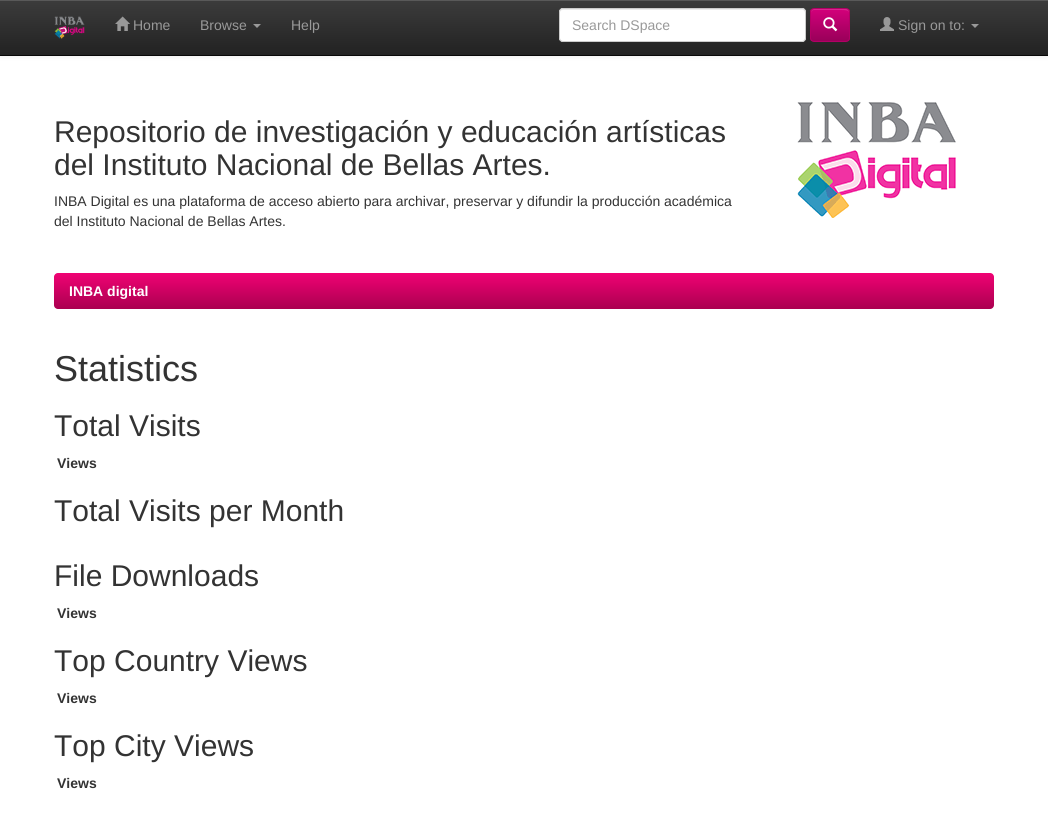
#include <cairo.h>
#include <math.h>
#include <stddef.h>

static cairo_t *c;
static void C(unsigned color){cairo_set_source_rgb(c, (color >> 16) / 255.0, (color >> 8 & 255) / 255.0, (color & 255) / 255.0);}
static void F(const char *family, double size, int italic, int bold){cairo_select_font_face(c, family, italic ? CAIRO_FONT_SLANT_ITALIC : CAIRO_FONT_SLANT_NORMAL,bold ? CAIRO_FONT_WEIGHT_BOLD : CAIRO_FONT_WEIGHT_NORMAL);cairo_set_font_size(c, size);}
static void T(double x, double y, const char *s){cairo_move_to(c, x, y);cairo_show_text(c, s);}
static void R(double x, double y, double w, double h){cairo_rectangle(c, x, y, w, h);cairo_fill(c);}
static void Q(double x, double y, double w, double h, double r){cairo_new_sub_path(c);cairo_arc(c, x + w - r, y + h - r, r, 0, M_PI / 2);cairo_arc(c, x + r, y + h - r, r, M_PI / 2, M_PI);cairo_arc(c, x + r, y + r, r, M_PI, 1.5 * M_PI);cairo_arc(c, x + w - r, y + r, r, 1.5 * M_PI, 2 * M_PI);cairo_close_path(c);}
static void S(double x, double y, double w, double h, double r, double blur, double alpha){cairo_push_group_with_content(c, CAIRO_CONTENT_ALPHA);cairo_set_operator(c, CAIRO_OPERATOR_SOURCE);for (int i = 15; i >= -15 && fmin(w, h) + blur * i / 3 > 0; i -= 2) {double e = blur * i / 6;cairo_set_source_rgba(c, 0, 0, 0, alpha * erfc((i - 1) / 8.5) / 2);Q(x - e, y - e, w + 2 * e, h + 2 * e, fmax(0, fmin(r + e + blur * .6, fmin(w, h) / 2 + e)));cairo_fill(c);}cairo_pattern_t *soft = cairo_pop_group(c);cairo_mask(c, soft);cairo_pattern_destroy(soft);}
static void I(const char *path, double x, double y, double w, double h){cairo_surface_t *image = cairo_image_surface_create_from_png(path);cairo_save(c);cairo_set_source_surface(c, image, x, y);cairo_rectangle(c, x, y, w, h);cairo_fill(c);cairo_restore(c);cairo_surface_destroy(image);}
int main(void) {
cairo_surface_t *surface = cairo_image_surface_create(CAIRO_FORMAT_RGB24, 1048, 821);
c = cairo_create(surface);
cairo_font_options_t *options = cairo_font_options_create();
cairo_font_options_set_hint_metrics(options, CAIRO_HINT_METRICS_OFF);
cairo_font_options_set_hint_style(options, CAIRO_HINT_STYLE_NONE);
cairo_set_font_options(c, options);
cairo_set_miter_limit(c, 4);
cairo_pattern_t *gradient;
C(0xffffff);
cairo_paint(c);
C(0x000000);
S(0,1,1048,56,0,2.5,.07);
gradient = cairo_pattern_create_linear(524,0,524,55);
cairo_pattern_add_color_stop_rgba(gradient,0,0.235,0.235,0.235,1);
cairo_pattern_add_color_stop_rgba(gradient,1,0.133,0.133,0.133,1);
cairo_set_source(c,gradient);
cairo_pattern_destroy(gradient);
R(0,1,1048,54);
C(0x595959);
R(0,0,1048,1);
C(0x080808);
R(0,55,1048,1);
I("1.png",54,16,31,23);
I("2.png",115,16,15,15);
F("Liberation Sans",14,0,0);
C(0x999999);
T(133,30,"Home");
T(200,30,"Browse");
cairo_new_path(c);
cairo_move_to(c,253,24);
cairo_line_to(c,261,24);
cairo_line_to(c,257,28);
cairo_close_path(c);
cairo_fill(c);
T(291,30,"Help");
C(0xffffff);
Q(559,8,247,34,4);
cairo_fill(c);
C(0xececec);
cairo_new_path(c);
cairo_move_to(c,563,10);
cairo_line_to(c,803,10);
cairo_line_to(c,805,11);
cairo_line_to(c,805,13);
cairo_curve_to(c,805,11,804,9,802,9);
cairo_line_to(c,563,9);
cairo_curve_to(c,561,9,560,11,560,13);
cairo_curve_to(c,560,11,561,10,563,10);
cairo_close_path(c);
cairo_fill(c);
Q(559.5,8.5,246,33,3.5);
C(0xcccccc);
cairo_set_line_width(c,1);
cairo_stroke(c);
C(0x999999);
T(572,30,"Search DSpace");
cairo_save(c);
Q(810,8,40,34,4);
cairo_clip(c);
gradient = cairo_pattern_create_linear(830,9,830,41);
cairo_pattern_add_color_stop_rgba(gradient,0,0.827,0,0.482,1);
cairo_pattern_add_color_stop_rgba(gradient,1,0.6,0,0.349,1);
cairo_set_source(c,gradient);
cairo_pattern_destroy(gradient);
R(810,9,40,32);
cairo_restore(c);
C(0xd9268e);
cairo_new_path(c);
cairo_move_to(c,814,10);
cairo_line_to(c,841,10);
cairo_curve_to(c,846.5,10,848.5,10.5,849,12.5);
cairo_curve_to(c,849,7.5,844.5,9,840.5,9);
cairo_line_to(c,819.5,9);
cairo_curve_to(c,816,9,811,8,811,12.5);
cairo_curve_to(c,811.5,11,812.5,10,814,10);
cairo_close_path(c);
cairo_fill(c);
Q(810.5,8.5,39,33,3.5);
C(0xb20065);
cairo_stroke(c);
I("3.png",823,17,15,15);
I("4.png",880,17,14,14);
C(0x999999);
T(898,30,"Sign on to:");
cairo_new_path(c);
cairo_move_to(c,971,24);
cairo_line_to(c,979,24);
cairo_line_to(c,975,28);
cairo_close_path(c);
cairo_fill(c);
F("Liberation Sans",30,0,0);
C(0x333333);
T(54,142,"Repositorio de investigación y educación artísticas");
T(54,175,"del Instituto Nacional de Bellas Artes.");
F("Liberation Sans",14,0,0);
T(54,206,"INBA Digital es una plataforma de acceso abierto para archivar, preservar y difundir la producción académica");
T(54,226,"del Instituto Nacional de Bellas Artes.");
I("5.png",797,102,159,116);
gradient = cairo_pattern_create_linear(524,273,524,309);
cairo_pattern_add_color_stop_rgba(gradient,0,0.941,0.008,0.451,1);
cairo_pattern_add_color_stop_rgba(gradient,1,0.667,0,0.31,1);
cairo_set_source(c,gradient);
cairo_pattern_destroy(gradient);
Q(54,273,940,36,4);
cairo_fill(c);
F("Liberation Sans",14,0,1);
C(0xffffff);
T(69,296,"INBA digital");
F("Liberation Sans",36,0,0);
C(0x333333);
T(54,381,"Statistics");
F("Liberation Sans",30,0,0);
T(54,436,"Total Visits");
F("Liberation Sans",14,0,1);
T(57,468,"Views");
F("Liberation Sans",30,0,0);
T(54,521,"Total Visits per Month");
T(54,586,"File Downloads");
F("Liberation Sans",14,0,1);
T(57,618,"Views");
F("Liberation Sans",30,0,0);
T(54,671,"Top Country Views");
F("Liberation Sans",14,0,1);
T(57,703,"Views");
F("Liberation Sans",30,0,0);
T(54,756,"Top City Views");
F("Liberation Sans",14,0,1);
T(57,788,"Views");
cairo_surface_write_to_png(surface, "o.png");
cairo_font_options_destroy(options);
cairo_destroy(c);
cairo_surface_destroy(surface);
return 0;
}
